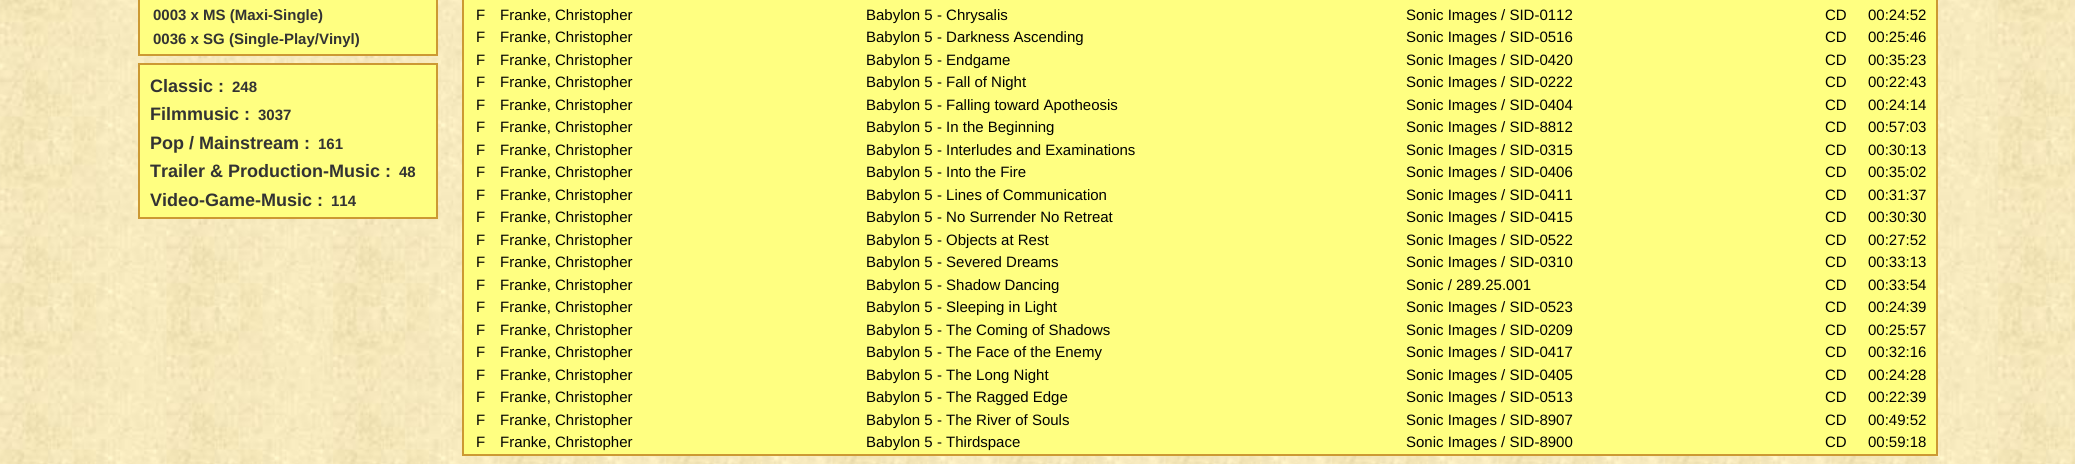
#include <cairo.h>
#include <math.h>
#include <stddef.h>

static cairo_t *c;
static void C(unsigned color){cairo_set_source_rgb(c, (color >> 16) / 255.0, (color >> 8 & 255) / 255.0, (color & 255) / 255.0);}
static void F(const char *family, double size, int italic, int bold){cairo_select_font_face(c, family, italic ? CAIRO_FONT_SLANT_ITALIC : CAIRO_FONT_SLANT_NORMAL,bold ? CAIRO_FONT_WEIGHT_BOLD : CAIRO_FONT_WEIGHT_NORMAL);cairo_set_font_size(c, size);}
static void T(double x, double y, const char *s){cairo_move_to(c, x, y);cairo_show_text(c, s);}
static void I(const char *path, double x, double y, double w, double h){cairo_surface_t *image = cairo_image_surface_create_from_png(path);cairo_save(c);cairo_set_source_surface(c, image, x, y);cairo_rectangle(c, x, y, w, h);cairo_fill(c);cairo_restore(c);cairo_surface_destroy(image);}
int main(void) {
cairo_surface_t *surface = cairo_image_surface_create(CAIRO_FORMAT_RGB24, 2075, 464);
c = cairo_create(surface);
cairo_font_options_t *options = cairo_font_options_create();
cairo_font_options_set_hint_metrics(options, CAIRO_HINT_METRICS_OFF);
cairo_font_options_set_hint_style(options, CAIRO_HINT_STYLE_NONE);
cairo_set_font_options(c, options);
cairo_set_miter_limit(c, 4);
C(0xffffff);
cairo_paint(c);
I("1.png",0,0,2075,464);
C(0xffff81);
cairo_rectangle(c,139,-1,298,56);
cairo_fill_preserve(c);
C(0xcc9933);
cairo_stroke(c);
F("Liberation Sans",15,0,1);
C(0x333333);
T(153,20,"0003 x MS (Maxi-Single)");
T(153,44,"0036 x SG (Single-Play/Vinyl)");
C(0xffff81);
cairo_rectangle(c,139,64,298,154);
cairo_fill_preserve(c);
C(0xcc9933);
cairo_stroke(c);
F("Liberation Sans",18,0,1);
C(0x333333);
T(150,92,"Classic :");
F("Liberation Sans",15,0,1);
T(232,92,"248");
F("Liberation Sans",18,0,1);
T(150,120,"Filmmusic :");
F("Liberation Sans",15,0,1);
T(258,120,"3037");
F("Liberation Sans",18,0,1);
T(150,149,"Pop / Mainstream :");
F("Liberation Sans",15,0,1);
T(318,149,"161");
F("Liberation Sans",18,0,1);
T(150,177,"Trailer & Production-Music :");
F("Liberation Sans",15,0,1);
T(399,177,"48");
F("Liberation Sans",18,0,1);
T(150,206,"Video-Game-Music :");
F("Liberation Sans",15,0,1);
T(331,206,"114");
C(0xffff81);
cairo_rectangle(c,463,-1,1474,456);
cairo_fill_preserve(c);
C(0xcc9933);
cairo_stroke(c);
F("Liberation Sans",15,0,0);
C(0x000000);
T(476,20,"F");
T(500,20,"Franke, Christopher");
T(866,20,"Babylon 5 - Chrysalis");
T(1406,20,"Sonic Images / SID-0112");
T(1825,20,"CD");
T(1868,20,"00:24:52");
T(476,42,"F");
T(500,42,"Franke, Christopher");
T(866,42,"Babylon 5 - Darkness Ascending");
T(1406,42,"Sonic Images / SID-0516");
T(1825,42,"CD");
T(1868,42,"00:25:46");
T(476,65,"F");
T(500,65,"Franke, Christopher");
T(866,65,"Babylon 5 - Endgame");
T(1406,65,"Sonic Images / SID-0420");
T(1825,65,"CD");
T(1868,65,"00:35:23");
T(476,87,"F");
T(500,87,"Franke, Christopher");
T(866,87,"Babylon 5 - Fall of Night");
T(1406,87,"Sonic Images / SID-0222");
T(1825,87,"CD");
T(1868,87,"00:22:43");
T(476,110,"F");
T(500,110,"Franke, Christopher");
T(866,110,"Babylon 5 - Falling toward Apotheosis");
T(1406,110,"Sonic Images / SID-0404");
T(1825,110,"CD");
T(1868,110,"00:24:14");
T(476,132,"F");
T(500,132,"Franke, Christopher");
T(866,132,"Babylon 5 - In the Beginning");
T(1406,132,"Sonic Images / SID-8812");
T(1825,132,"CD");
T(1868,132,"00:57:03");
T(476,155,"F");
T(500,155,"Franke, Christopher");
T(866,155,"Babylon 5 - Interludes and Examinations");
T(1406,155,"Sonic Images / SID-0315");
T(1825,155,"CD");
T(1868,155,"00:30:13");
T(476,177,"F");
T(500,177,"Franke, Christopher");
T(866,177,"Babylon 5 - Into the Fire");
T(1406,177,"Sonic Images / SID-0406");
T(1825,177,"CD");
T(1868,177,"00:35:02");
T(476,200,"F");
T(500,200,"Franke, Christopher");
T(866,200,"Babylon 5 - Lines of Communication");
T(1406,200,"Sonic Images / SID-0411");
T(1825,200,"CD");
T(1868,200,"00:31:37");
T(476,222,"F");
T(500,222,"Franke, Christopher");
T(866,222,"Babylon 5 - No Surrender No Retreat");
T(1406,222,"Sonic Images / SID-0415");
T(1825,222,"CD");
T(1868,222,"00:30:30");
T(476,245,"F");
T(500,245,"Franke, Christopher");
T(866,245,"Babylon 5 - Objects at Rest");
T(1406,245,"Sonic Images / SID-0522");
T(1825,245,"CD");
T(1868,245,"00:27:52");
T(476,267,"F");
T(500,267,"Franke, Christopher");
T(866,267,"Babylon 5 - Severed Dreams");
T(1406,267,"Sonic Images / SID-0310");
T(1825,267,"CD");
T(1868,267,"00:33:13");
T(476,290,"F");
T(500,290,"Franke, Christopher");
T(866,290,"Babylon 5 - Shadow Dancing");
T(1406,290,"Sonic / 289.25.001");
T(1825,290,"CD");
T(1868,290,"00:33:54");
T(476,312,"F");
T(500,312,"Franke, Christopher");
T(866,312,"Babylon 5 - Sleeping in Light");
T(1406,312,"Sonic Images / SID-0523");
T(1825,312,"CD");
T(1868,312,"00:24:39");
T(476,335,"F");
T(500,335,"Franke, Christopher");
T(866,335,"Babylon 5 - The Coming of Shadows");
T(1406,335,"Sonic Images / SID-0209");
T(1825,335,"CD");
T(1868,335,"00:25:57");
T(476,357,"F");
T(500,357,"Franke, Christopher");
T(866,357,"Babylon 5 - The Face of the Enemy");
T(1406,357,"Sonic Images / SID-0417");
T(1825,357,"CD");
T(1868,357,"00:32:16");
T(476,380,"F");
T(500,380,"Franke, Christopher");
T(866,380,"Babylon 5 - The Long Night");
T(1406,380,"Sonic Images / SID-0405");
T(1825,380,"CD");
T(1868,380,"00:24:28");
T(476,402,"F");
T(500,402,"Franke, Christopher");
T(866,402,"Babylon 5 - The Ragged Edge");
T(1406,402,"Sonic Images / SID-0513");
T(1825,402,"CD");
T(1868,402,"00:22:39");
T(476,425,"F");
T(500,425,"Franke, Christopher");
T(866,425,"Babylon 5 - The River of Souls");
T(1406,425,"Sonic Images / SID-8907");
T(1825,425,"CD");
T(1868,425,"00:49:52");
T(476,447,"F");
T(500,447,"Franke, Christopher");
T(866,447,"Babylon 5 - Thirdspace");
T(1406,447,"Sonic Images / SID-8900");
T(1825,447,"CD");
T(1868,447,"00:59:18");
cairo_surface_write_to_png(surface, "o.png");
cairo_font_options_destroy(options);
cairo_destroy(c);
cairo_surface_destroy(surface);
return 0;
}
